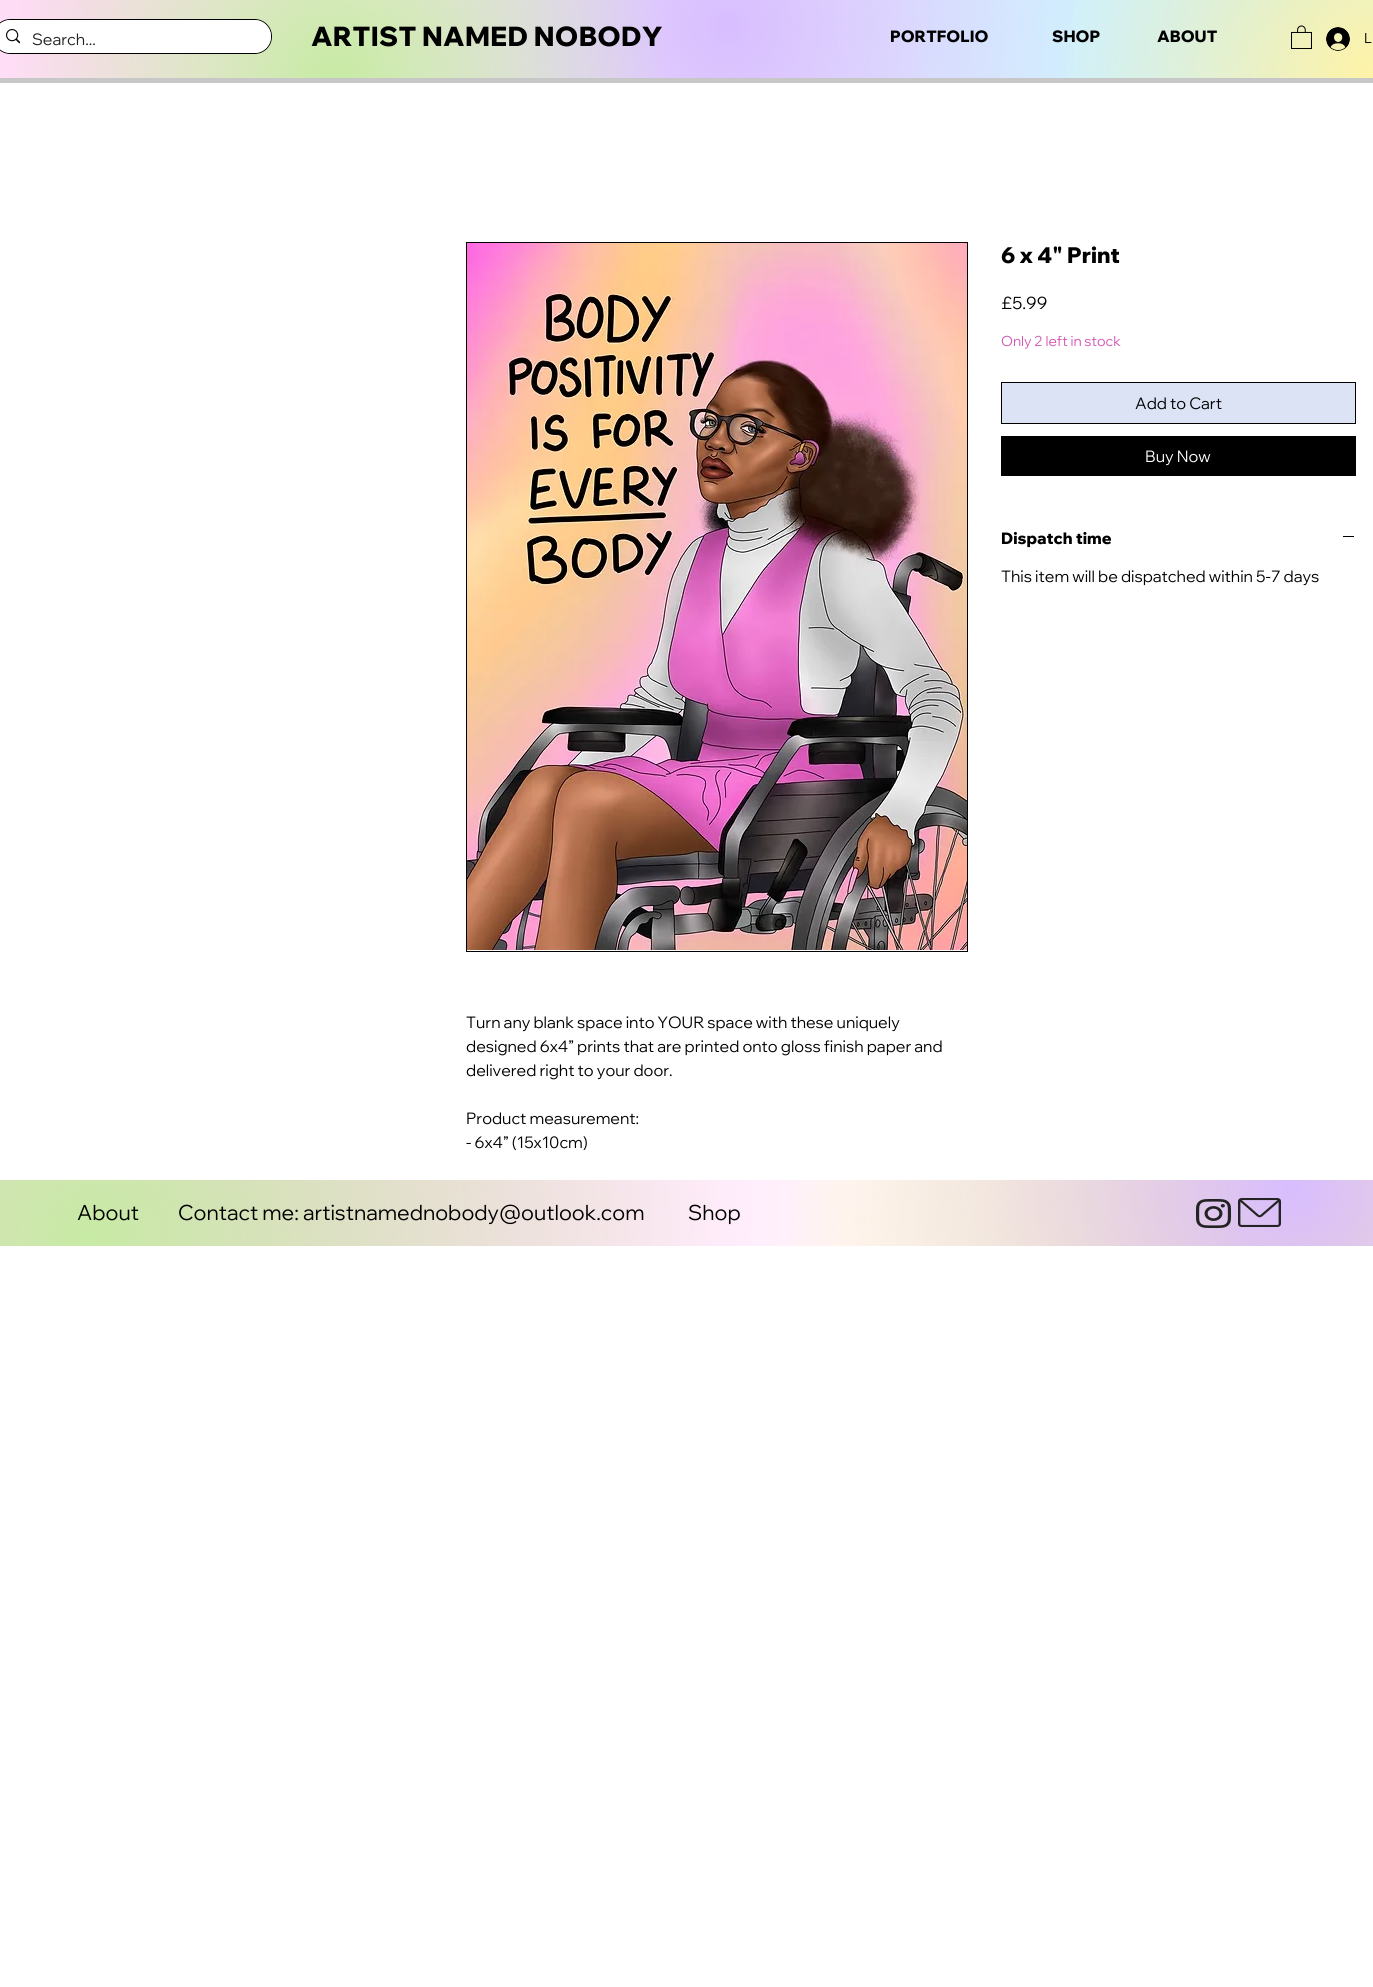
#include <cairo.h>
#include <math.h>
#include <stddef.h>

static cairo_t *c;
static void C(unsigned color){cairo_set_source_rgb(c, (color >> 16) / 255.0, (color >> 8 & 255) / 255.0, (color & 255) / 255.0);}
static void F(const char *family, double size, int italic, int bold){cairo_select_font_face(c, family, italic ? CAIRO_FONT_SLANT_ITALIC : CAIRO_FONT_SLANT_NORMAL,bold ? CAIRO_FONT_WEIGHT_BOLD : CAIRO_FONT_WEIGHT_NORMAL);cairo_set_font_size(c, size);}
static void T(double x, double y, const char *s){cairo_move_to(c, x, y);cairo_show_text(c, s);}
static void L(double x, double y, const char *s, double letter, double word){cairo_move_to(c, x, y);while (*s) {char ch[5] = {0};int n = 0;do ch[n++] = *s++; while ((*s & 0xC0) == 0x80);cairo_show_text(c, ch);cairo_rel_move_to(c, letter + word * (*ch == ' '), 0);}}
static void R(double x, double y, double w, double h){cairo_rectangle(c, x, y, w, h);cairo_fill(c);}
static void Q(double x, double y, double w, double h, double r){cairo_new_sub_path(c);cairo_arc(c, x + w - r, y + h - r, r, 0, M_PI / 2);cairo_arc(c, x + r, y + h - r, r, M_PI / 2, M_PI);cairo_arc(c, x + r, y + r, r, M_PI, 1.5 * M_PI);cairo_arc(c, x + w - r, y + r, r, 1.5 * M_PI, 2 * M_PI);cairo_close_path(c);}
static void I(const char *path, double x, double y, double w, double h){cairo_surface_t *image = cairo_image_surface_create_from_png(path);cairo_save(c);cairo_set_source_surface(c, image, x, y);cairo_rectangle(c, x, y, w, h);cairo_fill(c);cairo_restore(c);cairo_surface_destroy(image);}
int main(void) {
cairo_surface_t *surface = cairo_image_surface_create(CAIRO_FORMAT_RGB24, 1373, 1987);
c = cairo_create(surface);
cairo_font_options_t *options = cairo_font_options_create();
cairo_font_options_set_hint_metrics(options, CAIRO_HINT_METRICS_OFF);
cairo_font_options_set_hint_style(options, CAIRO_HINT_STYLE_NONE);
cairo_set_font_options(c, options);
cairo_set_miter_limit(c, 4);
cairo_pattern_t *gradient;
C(0xffffff);
cairo_paint(c);
C(0xc7c7c7);
R(0,78,1373,5);
gradient = cairo_pattern_create_radial(1285,1.9,0,1285,1.9,1288);
cairo_pattern_add_color_stop_rgba(gradient,0,0.757,0.925,0.992,1);
cairo_pattern_add_color_stop_rgba(gradient,.7,1,1,1,1);
cairo_set_source(c,gradient);
cairo_pattern_destroy(gradient);
R(420,0,953,78);
gradient = cairo_pattern_create_radial(85,10,0,85,10,1290);
cairo_pattern_add_color_stop_rgba(gradient,0,1,0.851,0.961,1);
cairo_pattern_add_color_stop_rgba(gradient,.7,1,0.851,0.961,0);
cairo_set_source(c,gradient);
cairo_pattern_destroy(gradient);
R(0,0,924,78);
gradient = cairo_pattern_create_radial(728,26,0,728,26,729);
cairo_pattern_add_color_stop_rgba(gradient,0,0.847,0.741,1,.99);
cairo_pattern_add_color_stop_rgba(gradient,.5,0.847,0.741,1,0);
cairo_set_source(c,gradient);
cairo_pattern_destroy(gradient);
R(382,0,692,78);
gradient = cairo_pattern_create_radial(1373,78,0,1373,78,1375);
cairo_pattern_add_color_stop_rgba(gradient,0,1,0.953,0.651,1);
cairo_pattern_add_color_stop_rgba(gradient,.23,1,0.953,0.651,0);
cairo_set_source(c,gradient);
cairo_pattern_destroy(gradient);
R(1066,0,307,78);
gradient = cairo_pattern_create_radial(337,78,0,337,78,1039);
cairo_pattern_add_color_stop_rgba(gradient,0,0.78,0.922,0.643,1);
cairo_pattern_add_color_stop_rgba(gradient,.32,0.78,0.922,0.643,0);
cairo_set_source(c,gradient);
cairo_pattern_destroy(gradient);
R(13,0,648,78);
Q(-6.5,19.5,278,34,17);
C(0x000000);
cairo_set_line_width(c,1);
cairo_stroke(c);
C(0xffffff);
Q(-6,20,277,33,16.5);
cairo_fill(c);
I("1.png",6,29,14,15);
F("Wix Madefor Display",16,0,0);
C(0x242323);
T(32,45,"Search...");
F("Wix Madefor Display ExtraBold",27,0,0);
C(0x000000);
L(311,46,"ARTIST NAMED NOBODY",.25,0);
F("Wix Madefor Display ExtraBold",16,0,0);
T(890,42,"PORTFOLIO");
T(1052,42,"SHOP");
T(1157,42,"ABOUT");
I("2.png",1291,25,21,24);
I("3.png",1326,27,24,24);
F("Wix Madefor Display",14,0,0);
T(1364,43,"L");
F("Wix Madefor Display ExtraBold",22,0,0);
T(1001,263,"6 x 4\" Print");
F("Wix Madefor Display",17,0,0);
T(1001,309,"£5.99");
F("Wix Madefor Display",14,0,0);
C(0xd356b3);
T(1001,346,"Only 2 left in stock");
C(0xdce3f5);
cairo_rectangle(c,1001.5,382.5,354,41);
cairo_fill_preserve(c);
C(0x000000);
cairo_stroke(c);
F("Wix Madefor Display",16,0,0);
T(1135,409,"Add to Cart");
R(1001,436,355,40);
C(0xffffff);
T(1145,462,"Buy Now");
F("Wix Madefor Display ExtraBold",16,0,0);
C(0x000000);
T(1001,544,"Dispatch time");
R(1343,536,11,1);
F("Wix Madefor Display",16,0,0);
T(1001,582,"This item will be dispatched within 5-7 days");
cairo_rectangle(c,466.5,242.5,501,709);
cairo_stroke(c);
I("4.png",467,243,500,707);
T(466,1028,"Turn any blank space into YOUR space with these uniquely");
T(466,1052,"designed 6x4” prints that are printed onto gloss finish paper and");
T(466,1076,"delivered right to your door.");
T(466,1124,"Product measurement:");
T(466,1148,"- 6x4” (15x10cm)");
gradient = cairo_pattern_create_radial(114,1191,0,114,1191,1261);
cairo_pattern_add_color_stop_rgba(gradient,0,1,0.753,0.941,1);
cairo_pattern_add_color_stop_rgba(gradient,.7,1,1,1,1);
cairo_set_source(c,gradient);
cairo_pattern_destroy(gradient);
R(0,1180,962,66);
gradient = cairo_pattern_create_radial(89,1238,0,89,1238,1285);
cairo_pattern_add_color_stop_rgba(gradient,0,0.78,0.922,0.643,.99);
cairo_pattern_add_color_stop_rgba(gradient,.5,0.78,0.922,0.643,0);
cairo_set_source(c,gradient);
cairo_pattern_destroy(gradient);
R(0,1180,715,66);
gradient = cairo_pattern_create_radial(1295,1239,0,1295,1239,1297);
cairo_pattern_add_color_stop_rgba(gradient,0,1,0.953,0.537,1);
cairo_pattern_add_color_stop_rgba(gradient,.4,1,0.953,0.537,0);
cairo_set_source(c,gradient);
cairo_pattern_destroy(gradient);
R(788,1180,585,66);
gradient = cairo_pattern_create_radial(1291,1188,0,1291,1188,1292);
cairo_pattern_add_color_stop_rgba(gradient,0,0.847,0.741,1,1);
cairo_pattern_add_color_stop_rgba(gradient,.35,0.847,0.741,1,0);
cairo_set_source(c,gradient);
cairo_pattern_destroy(gradient);
R(855,1180,518,66);
F("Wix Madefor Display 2",21,0,0);
C(0x000000);
T(77,1220,"About");
T(178,1220,"Contact me: artistnamednobody@outlook.com");
T(688,1220,"Shop");
I("5.png",1196,1199,35,29);
I("6.png",1238,1198,43,29);
cairo_surface_write_to_png(surface, "o.png");
cairo_font_options_destroy(options);
cairo_destroy(c);
cairo_surface_destroy(surface);
return 0;
}
